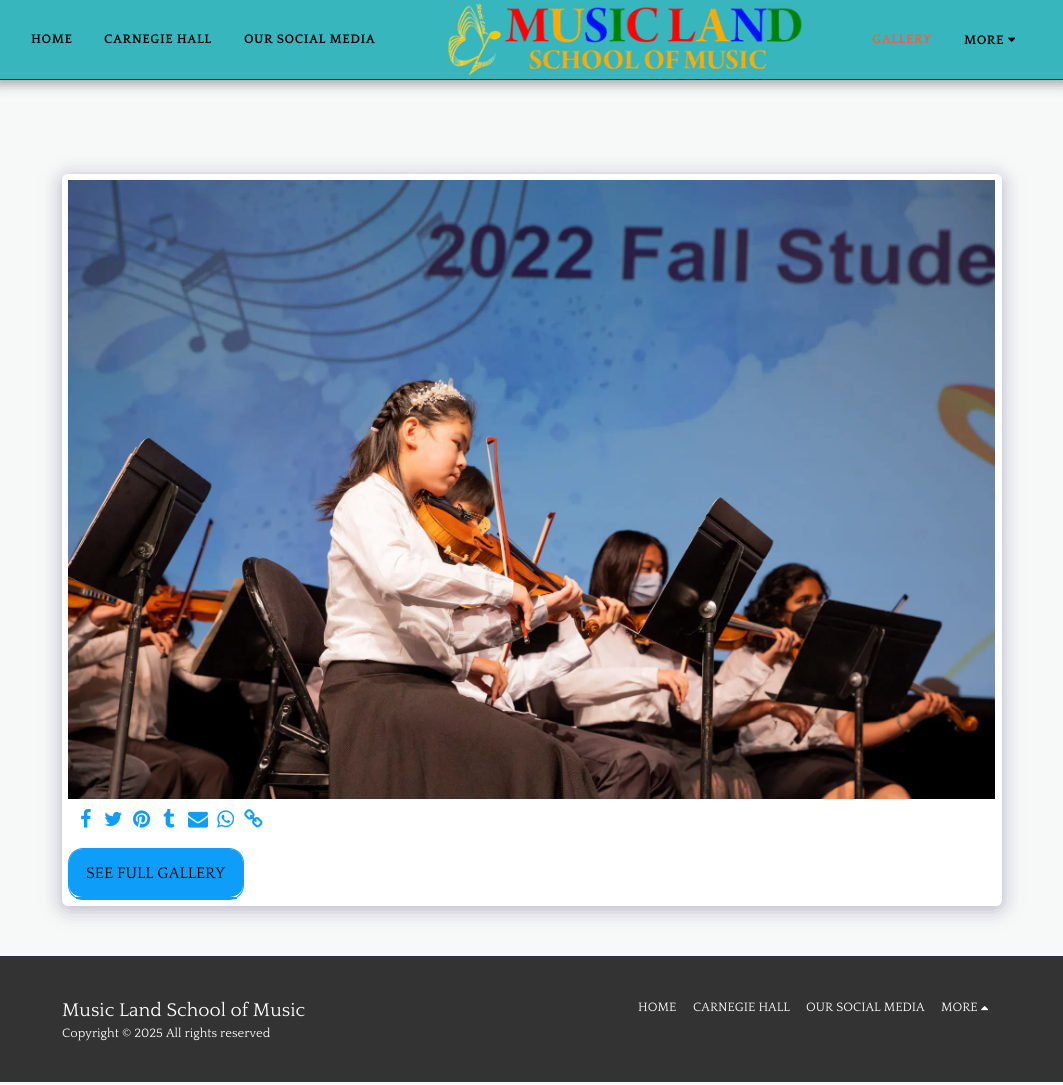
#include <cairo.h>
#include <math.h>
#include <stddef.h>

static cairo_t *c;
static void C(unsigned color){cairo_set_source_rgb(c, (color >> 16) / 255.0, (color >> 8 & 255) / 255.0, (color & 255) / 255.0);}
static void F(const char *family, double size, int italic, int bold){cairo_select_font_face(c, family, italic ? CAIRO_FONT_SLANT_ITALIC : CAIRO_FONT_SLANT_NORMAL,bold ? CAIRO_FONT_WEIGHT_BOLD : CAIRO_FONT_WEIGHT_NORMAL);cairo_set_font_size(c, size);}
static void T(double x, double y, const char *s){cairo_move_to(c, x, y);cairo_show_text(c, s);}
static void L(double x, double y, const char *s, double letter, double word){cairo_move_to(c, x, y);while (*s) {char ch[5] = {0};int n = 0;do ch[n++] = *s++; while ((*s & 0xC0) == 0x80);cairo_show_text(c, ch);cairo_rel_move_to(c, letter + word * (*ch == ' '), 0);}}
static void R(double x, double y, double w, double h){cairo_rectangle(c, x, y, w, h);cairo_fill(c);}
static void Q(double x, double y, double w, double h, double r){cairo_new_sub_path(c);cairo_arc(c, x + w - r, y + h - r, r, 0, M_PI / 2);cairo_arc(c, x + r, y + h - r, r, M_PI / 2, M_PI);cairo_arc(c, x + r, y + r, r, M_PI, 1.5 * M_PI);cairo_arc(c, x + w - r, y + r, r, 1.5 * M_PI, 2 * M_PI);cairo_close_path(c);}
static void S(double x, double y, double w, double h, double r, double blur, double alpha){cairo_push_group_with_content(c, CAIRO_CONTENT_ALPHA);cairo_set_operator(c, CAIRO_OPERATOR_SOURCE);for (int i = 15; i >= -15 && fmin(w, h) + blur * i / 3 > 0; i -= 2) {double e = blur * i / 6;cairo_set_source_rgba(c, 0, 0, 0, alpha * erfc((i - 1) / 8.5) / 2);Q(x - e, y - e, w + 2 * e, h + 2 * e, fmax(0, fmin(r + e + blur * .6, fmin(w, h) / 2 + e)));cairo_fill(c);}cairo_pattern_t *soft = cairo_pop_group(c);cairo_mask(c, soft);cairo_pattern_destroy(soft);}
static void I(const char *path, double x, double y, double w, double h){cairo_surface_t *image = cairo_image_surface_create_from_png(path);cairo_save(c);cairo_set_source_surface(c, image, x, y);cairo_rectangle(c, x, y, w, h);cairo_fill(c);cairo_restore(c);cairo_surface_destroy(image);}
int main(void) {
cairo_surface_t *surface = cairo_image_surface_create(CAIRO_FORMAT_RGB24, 1063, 1085);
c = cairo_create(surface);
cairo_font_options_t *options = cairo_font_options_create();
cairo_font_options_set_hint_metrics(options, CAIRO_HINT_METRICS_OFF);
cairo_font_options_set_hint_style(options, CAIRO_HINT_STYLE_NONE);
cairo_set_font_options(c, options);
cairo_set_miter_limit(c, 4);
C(0xf7f9f8);
cairo_paint(c);
C(0x000000);
S(-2,0,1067,84,0,6,.35);
C(0x37b6bd);
R(0,0,1063,79);
C(0x2b2e4a);
R(0,79,1063,1);
F("Quattrocento",13,0,1);
C(0x000000);
L(31,43,"HOME",.5,0);
L(104,43,"CARNEGIE HALL",.5,0);
L(244,43,"OUR SOCIAL MEDIA",.5,0);
I("1.png",448,3,354,73);
C(0xf05f40);
L(872,43,"GALLERY",.5,0);
C(0x000000);
L(964,44,"MORE",.5,0);
I("2.png",1008,37,7,5);
C(0x4d3f7a);
S(62,177,940,732,6,10,.4);
C(0xffffff);
Q(62,174,940,732,6);
cairo_fill(c);
I("3.png",68,180,927,619);
I("4.png",81,809,10,19);
I("5.png",104,811,18,16);
I("6.png",133,810,17,18);
I("7.png",163,809,12,19);
I("8.png",188,811,20,17);
I("9.png",217,810,17,18);
I("10.png",244,809,19,19);
C(0x0f9dfa);
cairo_new_path(c);
cairo_move_to(c,83,849);
cairo_line_to(c,229,849);
cairo_curve_to(c,237,849,243,855,243,863);
cairo_line_to(c,243,885);
cairo_curve_to(c,243,892,237,897,229,897);
cairo_line_to(c,83,897);
cairo_curve_to(c,75,897,69,892,69,885);
cairo_line_to(c,69,863);
cairo_curve_to(c,69,855,75,849,83,849);
cairo_close_path(c);
cairo_fill(c);
Q(68.5,848.5,175,51,14.5);
cairo_set_line_width(c,1);
cairo_stroke(c);
R(76,897,161,2);
F("Quattrocento",16,0,0);
C(0x000000);
T(86,878,"SEE FULL GALLERY");
C(0x333333);
R(0,957,1063,125);
C(0x2b2e4a);
R(0,956,1063,1);
F("Quattrocento",19.25,0,0);
C(0xffffff);
T(62,1016,"Music Land School of Music");
F("Quattrocento",12.75,0,0);
T(62,1037,"Copyright © 2025 All rights reserved");
T(638,1011,"HOME");
T(693,1011,"CARNEGIE HALL");
T(806,1011,"OUR SOCIAL MEDIA");
T(941,1011,"MORE");
I("11.png",981,1006,7,5);
cairo_surface_write_to_png(surface, "o.png");
cairo_font_options_destroy(options);
cairo_destroy(c);
cairo_surface_destroy(surface);
return 0;
}
